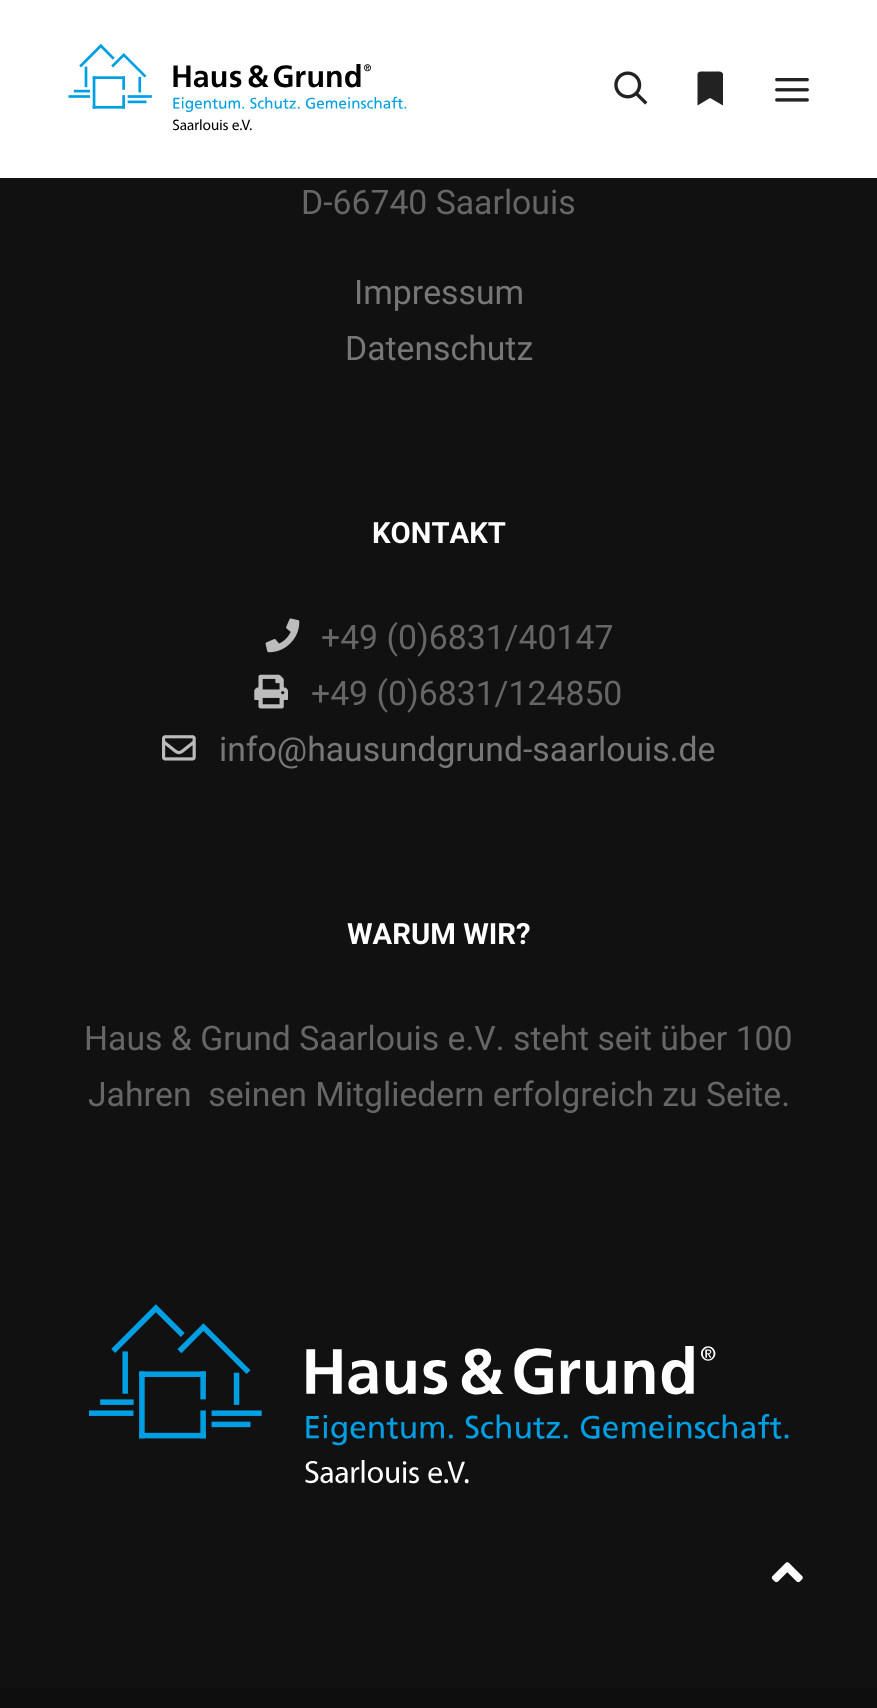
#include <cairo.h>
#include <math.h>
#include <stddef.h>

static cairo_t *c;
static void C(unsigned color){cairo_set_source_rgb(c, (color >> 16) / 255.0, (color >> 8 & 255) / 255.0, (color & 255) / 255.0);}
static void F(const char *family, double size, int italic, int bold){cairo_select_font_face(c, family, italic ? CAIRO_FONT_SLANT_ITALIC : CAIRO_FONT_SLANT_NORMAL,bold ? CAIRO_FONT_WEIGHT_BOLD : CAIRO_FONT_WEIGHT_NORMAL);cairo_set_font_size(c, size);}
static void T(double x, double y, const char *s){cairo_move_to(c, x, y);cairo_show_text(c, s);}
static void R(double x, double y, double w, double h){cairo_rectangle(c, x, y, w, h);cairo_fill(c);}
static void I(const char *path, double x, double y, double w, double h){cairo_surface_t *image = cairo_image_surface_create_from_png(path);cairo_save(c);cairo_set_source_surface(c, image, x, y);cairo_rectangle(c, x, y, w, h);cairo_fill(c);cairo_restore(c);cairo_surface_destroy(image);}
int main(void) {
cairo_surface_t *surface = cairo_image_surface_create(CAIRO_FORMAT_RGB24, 877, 1708);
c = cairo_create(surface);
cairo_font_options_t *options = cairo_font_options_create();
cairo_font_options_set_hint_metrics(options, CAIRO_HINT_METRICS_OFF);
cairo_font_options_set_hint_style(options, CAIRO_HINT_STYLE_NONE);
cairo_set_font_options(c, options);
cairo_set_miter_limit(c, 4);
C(0x111111);
cairo_paint(c);
C(0xffffff);
R(0,0,877,178);
I("1.png",68,43,339,88);
I("2.png",614,71,34,34);
C(0x222222);
cairo_new_path(c);
cairo_move_to(c,697.5,105.5);
cairo_line_to(c,697.5,74);
cairo_curve_to(c,698,71,701.5,71.5,704,71.5);
cairo_line_to(c,716.5,71.5);
cairo_curve_to(c,718.5,71.5,722,71,723,74);
cairo_line_to(c,723,105.5);
cairo_line_to(c,710,98);
cairo_close_path(c);
cairo_fill(c);
I("3.png",775,78,34,24);
F("Roboto",33.75,0,0);
C(0x666666);
T(301,214,"D-66740 Saarlouis");
C(0x777777);
T(354,304,"Impressum");
T(345,360,"Datenschutz");
F("Roboto",29.25,0,1);
C(0xffffff);
T(372,543,"KONTAKT");
I("4.png",265,618,35,35);
F("Roboto",33.75,0,0);
C(0x666666);
T(321,649,"+49 (0)6831/40147");
I("5.png",254,674,34,35);
T(311,705,"+49 (0)6831/124850");
I("6.png",162,735,34,26);
C(0x777777);
T(219,761,"info@hausundgrund-saarlouis.de");
F("Roboto",29.25,0,1);
C(0xffffff);
T(347,944,"WARUM WIR?");
F("Roboto",33.75,0,0);
C(0x666666);
T(84,1050,"Haus & Grund Saarlouis e.V. steht seit über 100");
T(88,1106,"Jahren  seinen Mitgliedern erfolgreich zu Seite.");
I("7.png",89,1304,700,180);
C(0x0e0e0e);
R(0,1688,877,20);
I("8.png",771,1562,32,21);
cairo_surface_write_to_png(surface, "o.png");
cairo_font_options_destroy(options);
cairo_destroy(c);
cairo_surface_destroy(surface);
return 0;
}
